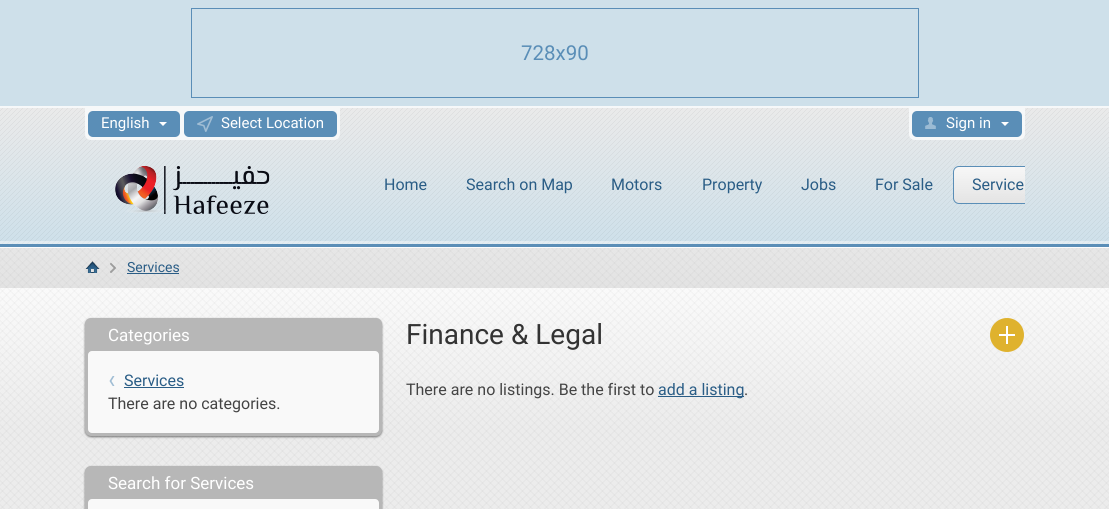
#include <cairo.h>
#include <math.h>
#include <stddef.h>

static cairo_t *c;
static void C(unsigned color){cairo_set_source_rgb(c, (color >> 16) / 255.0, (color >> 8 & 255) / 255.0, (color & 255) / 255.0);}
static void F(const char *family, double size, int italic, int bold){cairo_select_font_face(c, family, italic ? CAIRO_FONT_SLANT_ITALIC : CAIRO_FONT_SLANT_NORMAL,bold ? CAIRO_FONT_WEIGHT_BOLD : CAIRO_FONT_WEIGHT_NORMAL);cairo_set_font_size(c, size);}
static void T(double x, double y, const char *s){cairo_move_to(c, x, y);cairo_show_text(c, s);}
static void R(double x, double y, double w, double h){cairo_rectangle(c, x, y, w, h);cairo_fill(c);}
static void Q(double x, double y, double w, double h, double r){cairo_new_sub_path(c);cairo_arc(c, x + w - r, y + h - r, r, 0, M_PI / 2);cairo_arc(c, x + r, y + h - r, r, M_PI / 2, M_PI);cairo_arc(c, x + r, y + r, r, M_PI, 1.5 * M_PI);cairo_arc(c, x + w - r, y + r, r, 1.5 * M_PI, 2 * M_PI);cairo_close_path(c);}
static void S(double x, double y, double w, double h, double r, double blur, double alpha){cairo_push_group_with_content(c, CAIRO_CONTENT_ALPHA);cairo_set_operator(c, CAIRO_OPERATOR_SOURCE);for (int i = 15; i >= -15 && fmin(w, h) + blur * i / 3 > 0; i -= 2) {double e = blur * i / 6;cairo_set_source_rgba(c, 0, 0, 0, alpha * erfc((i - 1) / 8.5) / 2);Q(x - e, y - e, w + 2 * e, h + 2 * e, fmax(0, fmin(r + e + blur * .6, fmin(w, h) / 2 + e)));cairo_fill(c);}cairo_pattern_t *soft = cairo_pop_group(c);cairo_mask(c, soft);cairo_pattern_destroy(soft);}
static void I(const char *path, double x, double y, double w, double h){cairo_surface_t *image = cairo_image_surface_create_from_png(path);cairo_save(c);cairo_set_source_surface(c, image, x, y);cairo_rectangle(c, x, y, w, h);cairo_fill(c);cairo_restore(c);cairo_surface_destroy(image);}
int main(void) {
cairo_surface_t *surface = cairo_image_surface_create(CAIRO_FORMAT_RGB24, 1109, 509);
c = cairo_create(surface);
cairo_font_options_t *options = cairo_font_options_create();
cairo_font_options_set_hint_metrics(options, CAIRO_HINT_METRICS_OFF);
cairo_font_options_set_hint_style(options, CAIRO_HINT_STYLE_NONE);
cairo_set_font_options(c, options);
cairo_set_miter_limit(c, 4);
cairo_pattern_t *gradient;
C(0xffffff);
cairo_paint(c);
C(0xcee0ea);
R(0,0,1109,106);
C(0xf6f8f9);
R(0,106,1109,2);
cairo_rectangle(c,191.5,8.5,727,89);
C(0x5a8eb7);
cairo_set_line_width(c,1);
cairo_stroke(c);
F("Roboto",20.5,0,0);
T(521,60,"728x90");
I("1.png",0,108,1109,136);
cairo_set_source_rgba(c,1,1,1,0.4);
R(0,241,1109,3);
C(0x5a8eb7);
R(0,244,1109,3);
C(0xf6f8f9);
cairo_new_path(c);
cairo_move_to(c,85,108);
cairo_line_to(c,340,108);
cairo_line_to(c,340,134);
cairo_curve_to(c,340,137.5,337.5,140,334,140);
cairo_line_to(c,91,140);
cairo_curve_to(c,87.5,140,85,137.5,85,134);
cairo_close_path(c);
cairo_fill(c);
C(0x5a8eb7);
Q(88,111,92,26,5);
cairo_fill(c);
F("Roboto",15,0,0);
C(0xffffff);
T(101,128,"English");
cairo_new_path(c);
cairo_move_to(c,159,122);
cairo_line_to(c,167,122);
cairo_line_to(c,163,126);
cairo_close_path(c);
cairo_fill(c);
C(0x5a8eb7);
Q(184,111,153,26,5);
cairo_fill(c);
I("2.png",197,116,16,16);
C(0xffffff);
T(221,128,"Select Location");
C(0xf6f8f9);
cairo_new_path(c);
cairo_move_to(c,909,108);
cairo_line_to(c,1025,108);
cairo_line_to(c,1025,134);
cairo_curve_to(c,1025,137.5,1022.5,140,1019,140);
cairo_line_to(c,915,140);
cairo_curve_to(c,911.5,140,909,137.5,909,134);
cairo_close_path(c);
cairo_fill(c);
C(0x5a8eb7);
Q(912,111,110,26,5);
cairo_fill(c);
I("3.png",925,117,11,12);
C(0xffffff);
T(946,128,"Sign in");
cairo_new_path(c);
cairo_move_to(c,1001,122);
cairo_line_to(c,1009,122);
cairo_line_to(c,1005,126);
cairo_close_path(c);
cairo_fill(c);
I("4.png",115,166,155,48);
F("Roboto",16,0,0);
C(0x2a5d86);
T(384,190,"Home");
T(466,190,"Search on Map");
T(611,190,"Motors");
T(702,190,"Property");
T(801,190,"Jobs");
T(875,190,"For Sale");
cairo_save(c);
Q(953,166,98,38,6);
cairo_clip(c);
gradient = cairo_pattern_create_linear(1002,167,1002,203);
cairo_pattern_add_color_stop_rgba(gradient,0,0.969,0.969,0.969,1);
cairo_pattern_add_color_stop_rgba(gradient,1,0.894,0.894,0.894,1);
cairo_set_source(c,gradient);
cairo_pattern_destroy(gradient);
R(953,167,72,36);
cairo_restore(c);
cairo_save(c);
cairo_rectangle(c,365,166,660,38);
cairo_clip(c);
Q(953.5,166.5,97,37,5.5);
C(0x5a8eb7);
cairo_stroke(c);
cairo_restore(c);
T(972,190,"Service");
I("5.png",0,248,1109,261);
C(0xfcfcfc);
R(0,247,1109,1);
cairo_set_source_rgba(c,0,0,0,0.09);
R(0,248,1109,40);
I("6.png",85,261,15,12);
I("7.png",110,263,6,10);
F("Roboto",14,0,0);
C(0x2a5d86);
T(127,272,"Services");
R(127,273,52,1);
C(0x000000);
S(85,319,297,118,6,1,.5);
C(0xb7b7b7);
Q(85,318,297,118,6);
cairo_fill(c);
F("Roboto",17,0,0);
C(0xffffff);
T(108,341,"Categories");
C(0xf9f9f9);
Q(88,351,291,82,4);
cairo_fill(c);
I("8.png",109,376,6,10);
F("Roboto",16,0,0);
C(0x2a5d86);
T(124,386,"Services");
R(124,387,60,1);
C(0x444444);
T(108,409,"There are no categories.");
C(0x000000);
S(85,467,297,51,6,1,.5);
C(0xb7b7b7);
Q(85,466,297,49,6);
cairo_fill(c);
F("Roboto",17,0,0);
C(0xffffff);
T(108,489,"Search for Services");
C(0xf9f9f9);
Q(88,499,291,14,4);
cairo_fill(c);
F("Roboto",28,0,0);
C(0x333333);
T(406,344,"Finance & Legal");
C(0xdfb22e);
cairo_new_path(c);
cairo_arc(c,1007,335,17,0,2 * M_PI);
cairo_fill(c);
C(0xffffff);
R(999,334,16,2);
R(1006,326,2,18);
F("Roboto",16,0,0);
C(0x444444);
T(406,395,"There are no listings. Be the first to");
C(0x2a5d86);
R(658,396,86,1);
T(658,395,"add a listing");
C(0x444444);
T(744,395,".");
cairo_surface_write_to_png(surface, "o.png");
cairo_font_options_destroy(options);
cairo_destroy(c);
cairo_surface_destroy(surface);
return 0;
}
